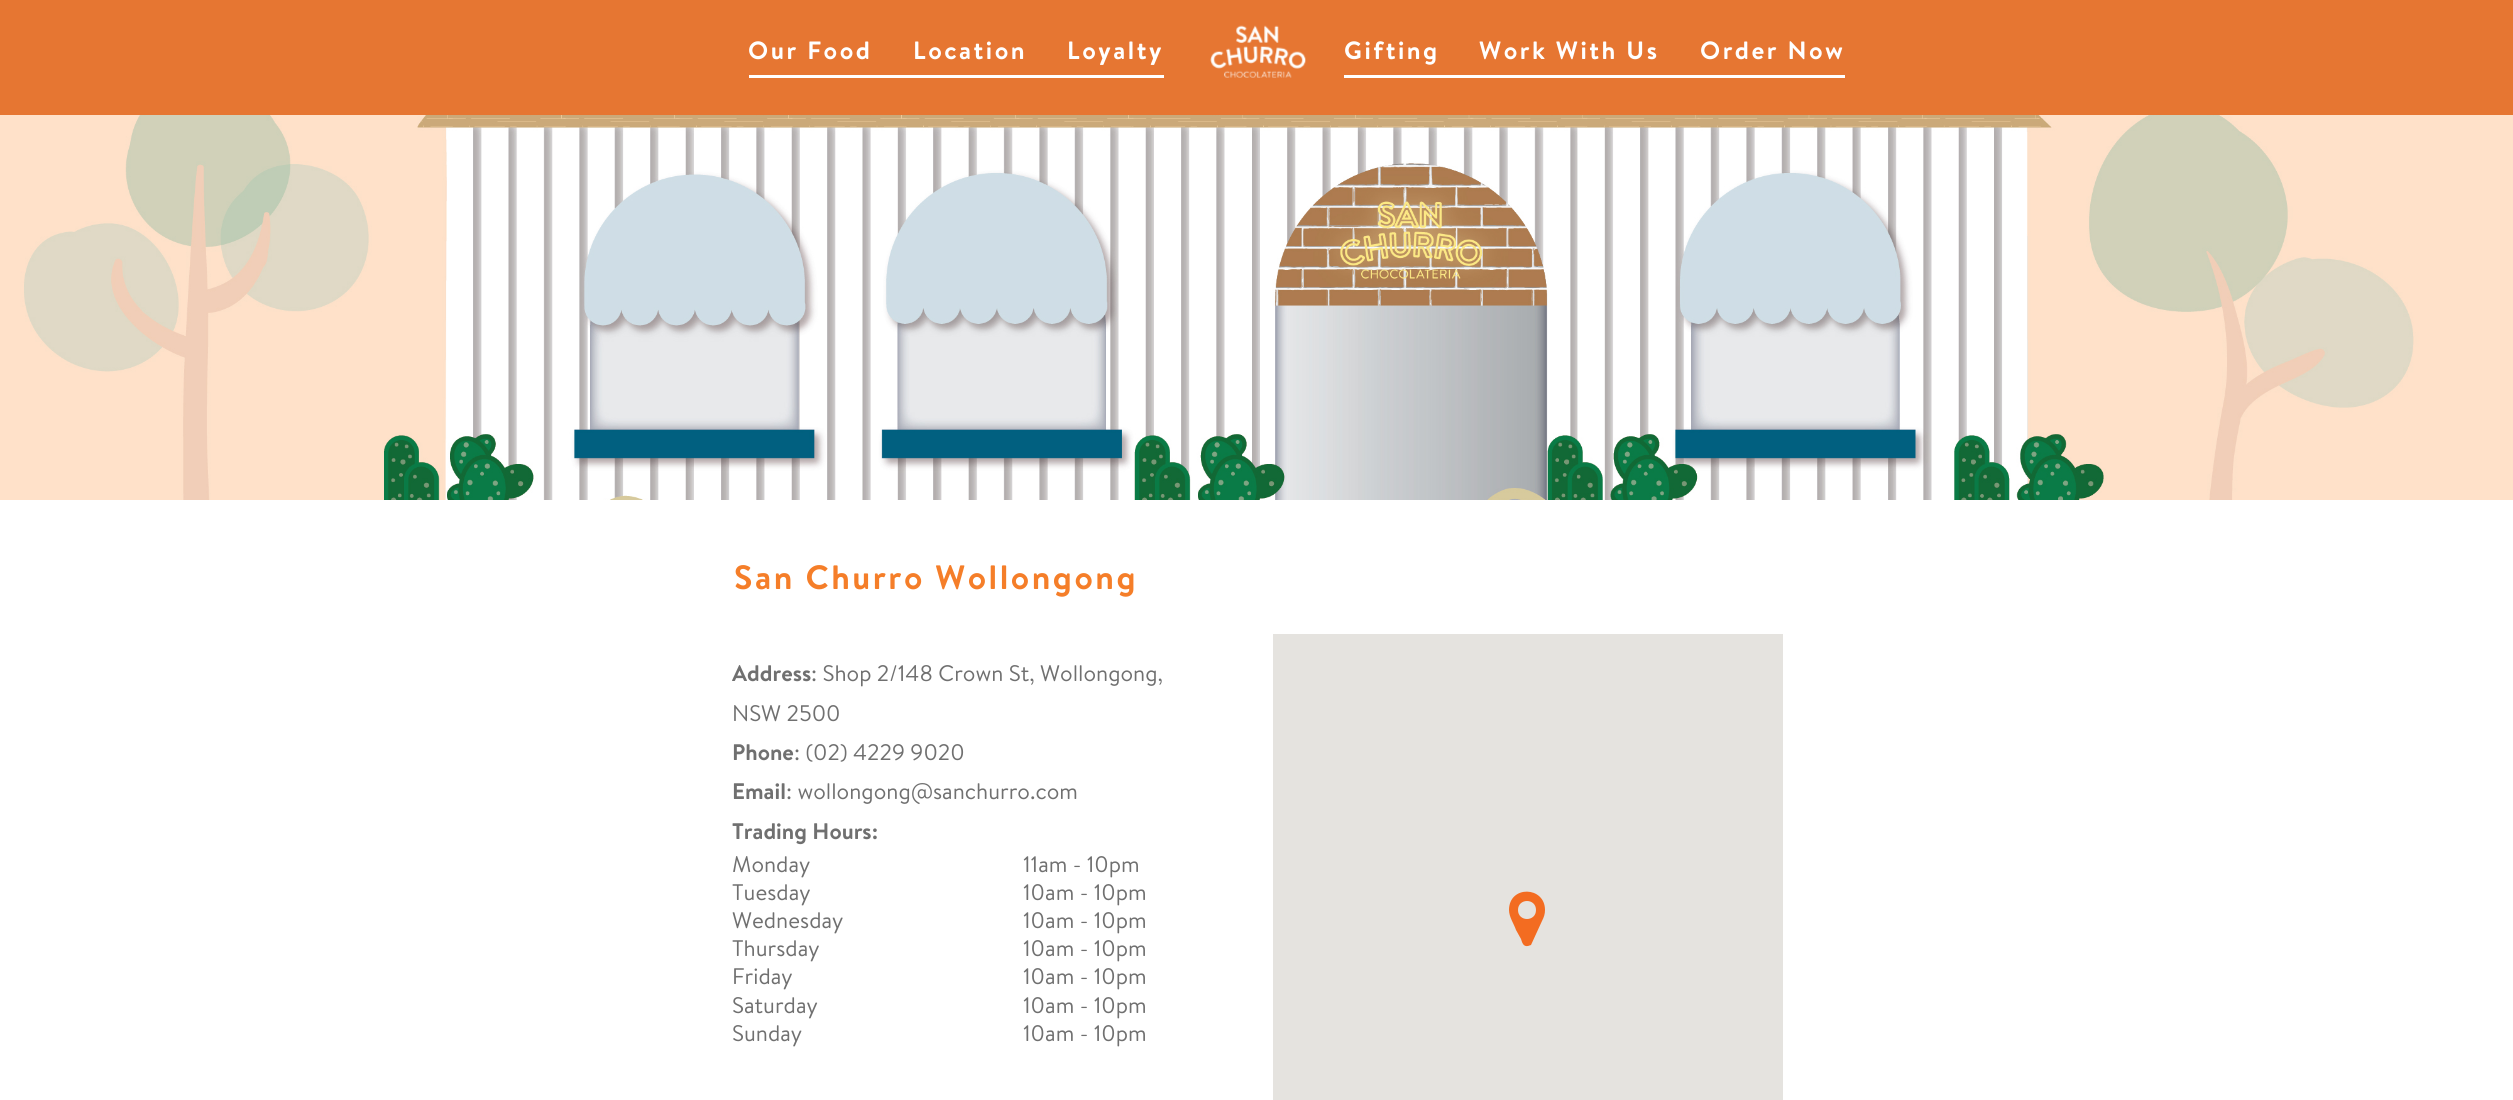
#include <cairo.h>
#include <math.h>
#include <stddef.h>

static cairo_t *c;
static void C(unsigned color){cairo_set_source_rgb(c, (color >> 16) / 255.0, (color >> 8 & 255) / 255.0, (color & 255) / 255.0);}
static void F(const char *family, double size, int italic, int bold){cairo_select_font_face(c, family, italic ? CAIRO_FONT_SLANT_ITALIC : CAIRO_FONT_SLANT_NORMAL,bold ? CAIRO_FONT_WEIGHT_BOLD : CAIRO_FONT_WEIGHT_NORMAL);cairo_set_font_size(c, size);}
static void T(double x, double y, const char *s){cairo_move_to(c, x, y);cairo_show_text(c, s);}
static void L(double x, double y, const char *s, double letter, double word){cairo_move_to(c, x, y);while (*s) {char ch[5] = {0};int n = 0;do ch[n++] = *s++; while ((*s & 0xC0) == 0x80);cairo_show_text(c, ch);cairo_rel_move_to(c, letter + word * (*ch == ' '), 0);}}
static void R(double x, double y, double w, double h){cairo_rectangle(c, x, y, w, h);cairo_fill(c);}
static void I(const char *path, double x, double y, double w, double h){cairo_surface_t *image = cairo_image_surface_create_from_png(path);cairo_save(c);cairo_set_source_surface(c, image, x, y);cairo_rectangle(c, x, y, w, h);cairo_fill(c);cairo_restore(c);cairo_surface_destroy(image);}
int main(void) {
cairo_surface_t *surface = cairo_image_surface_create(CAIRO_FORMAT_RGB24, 2513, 1100);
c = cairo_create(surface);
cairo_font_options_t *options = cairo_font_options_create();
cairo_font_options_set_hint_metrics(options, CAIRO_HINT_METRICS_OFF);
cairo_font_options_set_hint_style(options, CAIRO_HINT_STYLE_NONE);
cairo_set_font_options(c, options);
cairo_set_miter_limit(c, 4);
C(0xffffff);
cairo_paint(c);
C(0xe67632);
R(0,0,2513,115);
I("1.png",1210,25,96,53);
C(0xffffff);
R(749,75,415,3);
F("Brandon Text",25,0,1);
L(748,59,"Our Food",2.5,0);
L(913,59,"Location",2.5,0);
L(1067,59,"Loyalty",2.5,0);
R(1344,75,501,3);
L(1344,59,"Gifting",2.5,0);
L(1479,59,"Work With Us",2.5,0);
L(1700,59,"Order Now",2.5,0);
I("2.png",0,115,2513,385);
F("Brandon Text",33.75,0,1);
C(0xf57e29);
L(734,589,"San Churro Wollongong",2.5,0);
F("Brandon Text",22.5,0,1);
C(0x707070);
T(732,681,"Address");
F("Brandon Text",22.5,0,0);
T(811,681,": Shop 2/148 Crown St, Wollongong,");
T(732,721,"NSW 2500");
F("Brandon Text",22.5,0,1);
T(732,760,"Phone");
F("Brandon Text",22.5,0,0);
T(794,760,": (02) 4229 9020");
F("Brandon Text",22.5,0,1);
T(732,799,"Email");
F("Brandon Text",22.5,0,0);
T(786,799,": wollongong@sanchurro.com");
F("Brandon Text",22.5,0,1);
T(732,839,"Trading Hours:");
F("Brandon Text",22.5,0,0);
T(732,872,"Monday");
T(1023,872,"11am - 10pm");
T(732,900,"Tuesday");
T(1023,900,"10am - 10pm");
T(732,928,"Wednesday");
T(1023,928,"10am - 10pm");
T(732,956,"Thursday");
T(1023,956,"10am - 10pm");
T(732,984,"Friday");
T(1023,984,"10am - 10pm");
T(732,1013,"Saturday");
T(1023,1013,"10am - 10pm");
T(732,1041,"Sunday");
T(1023,1041,"10am - 10pm");
C(0xe5e3df);
R(1273,634,510,466);
C(0xf36c21);
cairo_new_path(c);
cairo_move_to(c,1536,910);
cairo_curve_to(c,1536,898,1518,898,1518,910);
cairo_curve_to(c,1518,922,1536,922,1536,910);
cairo_close_path(c);
cairo_move_to(c,1545,910);
cairo_curve_to(c,1545,914,1544,917,1542,921);
cairo_line_to(c,1531,945);
cairo_line_to(c,1528,946);
cairo_curve_to(c,1523,947,1522,942,1521,939);
cairo_line_to(c,1516,930);
cairo_curve_to(c,1514,924,1509,917,1509,910);
cairo_curve_to(c,1509,885,1545,886,1545,910);
cairo_close_path(c);
cairo_fill(c);
cairo_surface_write_to_png(surface, "o.png");
cairo_font_options_destroy(options);
cairo_destroy(c);
cairo_surface_destroy(surface);
return 0;
}
